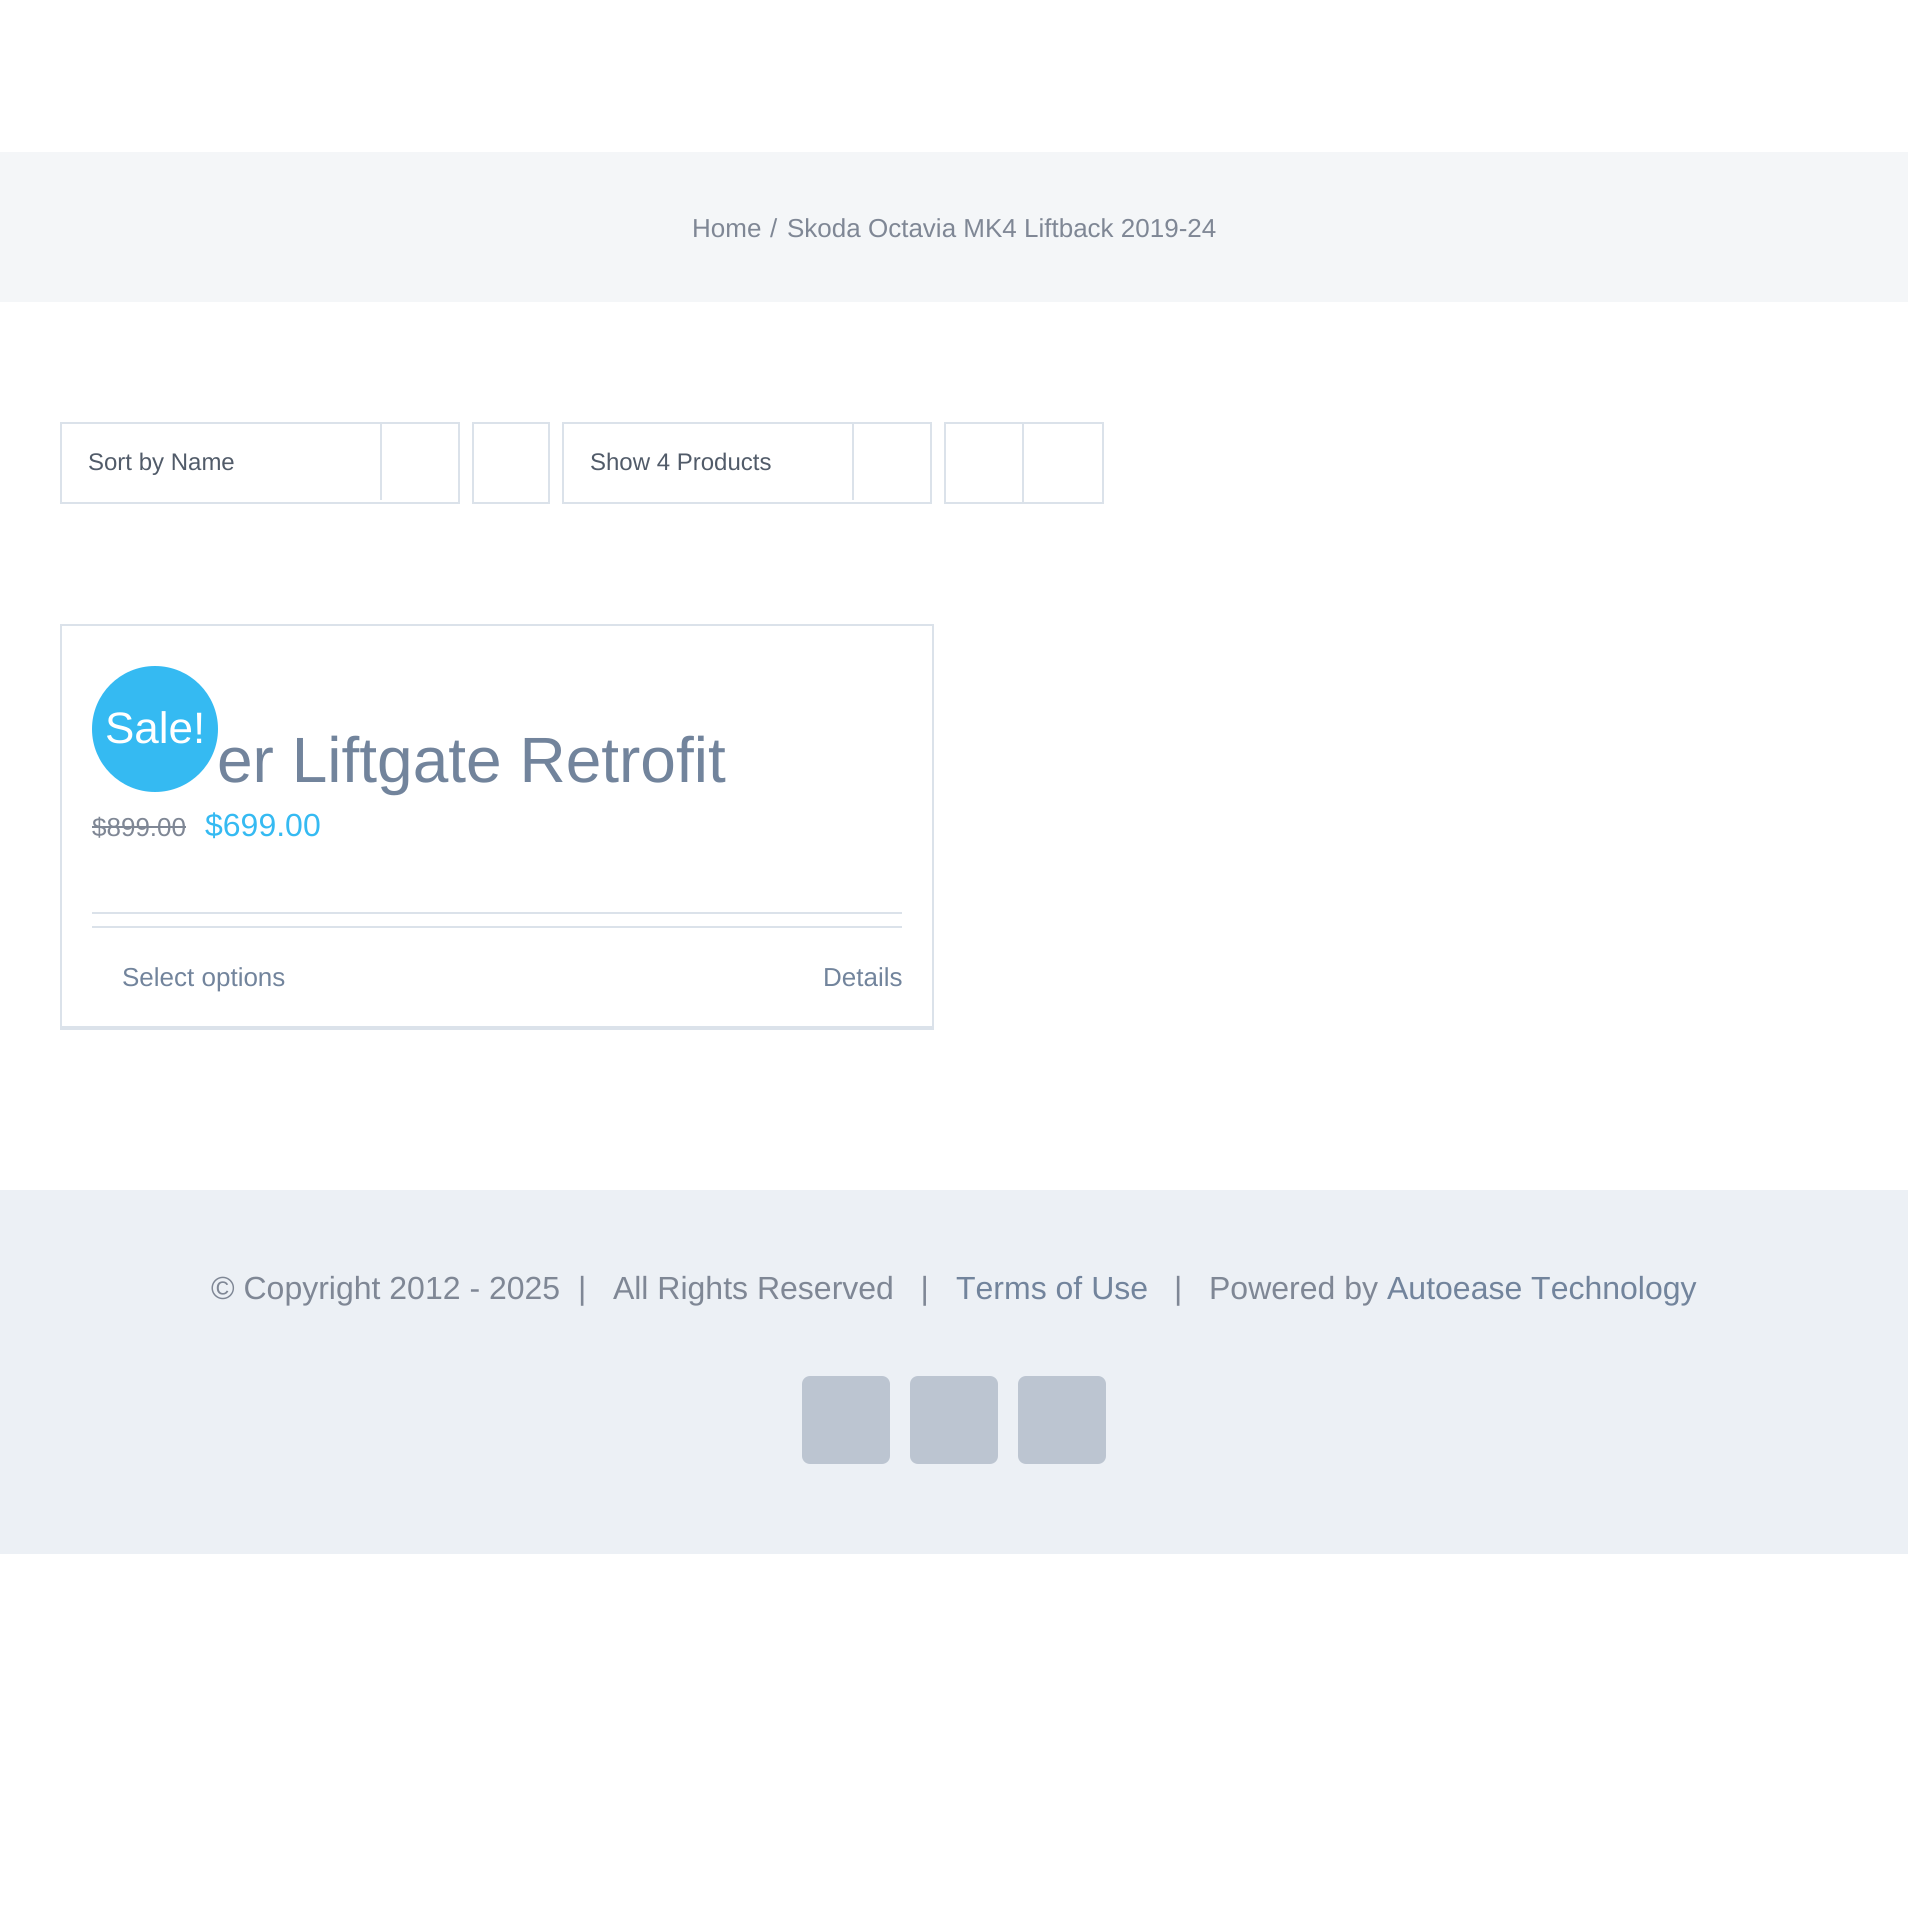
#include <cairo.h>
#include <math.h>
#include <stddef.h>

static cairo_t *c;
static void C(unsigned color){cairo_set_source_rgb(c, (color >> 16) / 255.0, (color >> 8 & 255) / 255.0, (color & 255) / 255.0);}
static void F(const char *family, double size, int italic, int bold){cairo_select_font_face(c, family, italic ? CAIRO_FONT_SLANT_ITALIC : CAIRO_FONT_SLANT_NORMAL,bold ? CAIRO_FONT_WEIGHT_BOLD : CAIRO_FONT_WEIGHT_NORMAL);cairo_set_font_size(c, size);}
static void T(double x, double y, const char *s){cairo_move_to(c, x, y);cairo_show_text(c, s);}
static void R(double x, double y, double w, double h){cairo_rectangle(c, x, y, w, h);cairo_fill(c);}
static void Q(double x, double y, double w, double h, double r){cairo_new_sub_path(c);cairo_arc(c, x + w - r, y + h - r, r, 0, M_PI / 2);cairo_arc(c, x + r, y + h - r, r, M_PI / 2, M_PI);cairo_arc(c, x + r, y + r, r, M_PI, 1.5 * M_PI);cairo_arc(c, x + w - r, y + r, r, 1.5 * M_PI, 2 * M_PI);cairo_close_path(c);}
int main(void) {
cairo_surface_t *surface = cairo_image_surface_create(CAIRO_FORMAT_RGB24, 1908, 1908);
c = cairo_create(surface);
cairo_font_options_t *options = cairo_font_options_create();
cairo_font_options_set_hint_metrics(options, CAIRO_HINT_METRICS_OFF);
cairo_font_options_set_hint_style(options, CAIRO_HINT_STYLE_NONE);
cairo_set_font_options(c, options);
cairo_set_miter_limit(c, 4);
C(0xffffff);
cairo_paint(c);
C(0xf4f6f8);
R(0,152,1908,150);
F("Liberation Sans",26,0,0);
C(0x7f8795);
T(692,237,"Home");
T(770,237,"/");
T(787,237,"Skoda Octavia MK4 Liftback 2019-24");
cairo_rectangle(c,61,423,398,80);
C(0xdbe2ea);
cairo_stroke(c);
F("Liberation Sans",24,0,0);
C(0x515b69);
T(88,470,"Sort by Name");
C(0xdbe2ea);
R(380,422,2,78);
cairo_rectangle(c,473,423,76,80);
cairo_stroke(c);
cairo_rectangle(c,563,423,368,80);
cairo_stroke(c);
C(0x515b69);
T(590,470,"Show 4 Products");
C(0xdbe2ea);
R(852,422,2,78);
cairo_rectangle(c,945,423,158,80);
cairo_stroke(c);
R(1022,424,2,78);
R(60,624,874,2);
R(932,624,2,406);
R(60,1026,874,4);
R(60,624,2,406);
C(0x35baf2);
cairo_arc(c,155,729,63,0,2 * M_PI);
cairo_fill(c);
F("Liberation Sans",44,0,0);
C(0xffffff);
T(105,743,"Sale!");
F("Liberation Sans",64,0,0);
C(0x72849c);
T(217,782,"er Liftgate Retrofit");
F("Liberation Sans",26,0,0);
C(0x7f8795);
T(92,836,"$899.00");
R(92,826,94,2);
F("Liberation Sans",32,0,0);
C(0x35baf2);
T(205,836,"$699.00");
C(0xdbe2ea);
R(92,912,810,2);
R(92,926,810,2);
F("Liberation Sans",26,0,0);
C(0x72849c);
T(122,986,"Select options");
T(823,986,"Details");
C(0xecf0f5);
R(0,1190,1908,364);
F("Liberation Sans",32,0,0);
C(0x7f8795);
T(211,1299,"© Copyright 2012 - 2025  |   All Rights Reserved   |");
C(0x72849c);
T(956,1299,"Terms of Use");
C(0x7f8795);
T(1174,1299,"|   Powered by");
C(0x72849c);
T(1387,1299,"Autoease Technology");
C(0xbcc5d1);
Q(803,1377,86,86,7);
cairo_fill_preserve(c);
cairo_stroke(c);
Q(911,1377,86,86,7);
cairo_fill_preserve(c);
cairo_stroke(c);
Q(1019,1377,86,86,7);
cairo_fill_preserve(c);
cairo_stroke(c);
cairo_surface_write_to_png(surface, "o.png");
cairo_font_options_destroy(options);
cairo_destroy(c);
cairo_surface_destroy(surface);
return 0;
}
